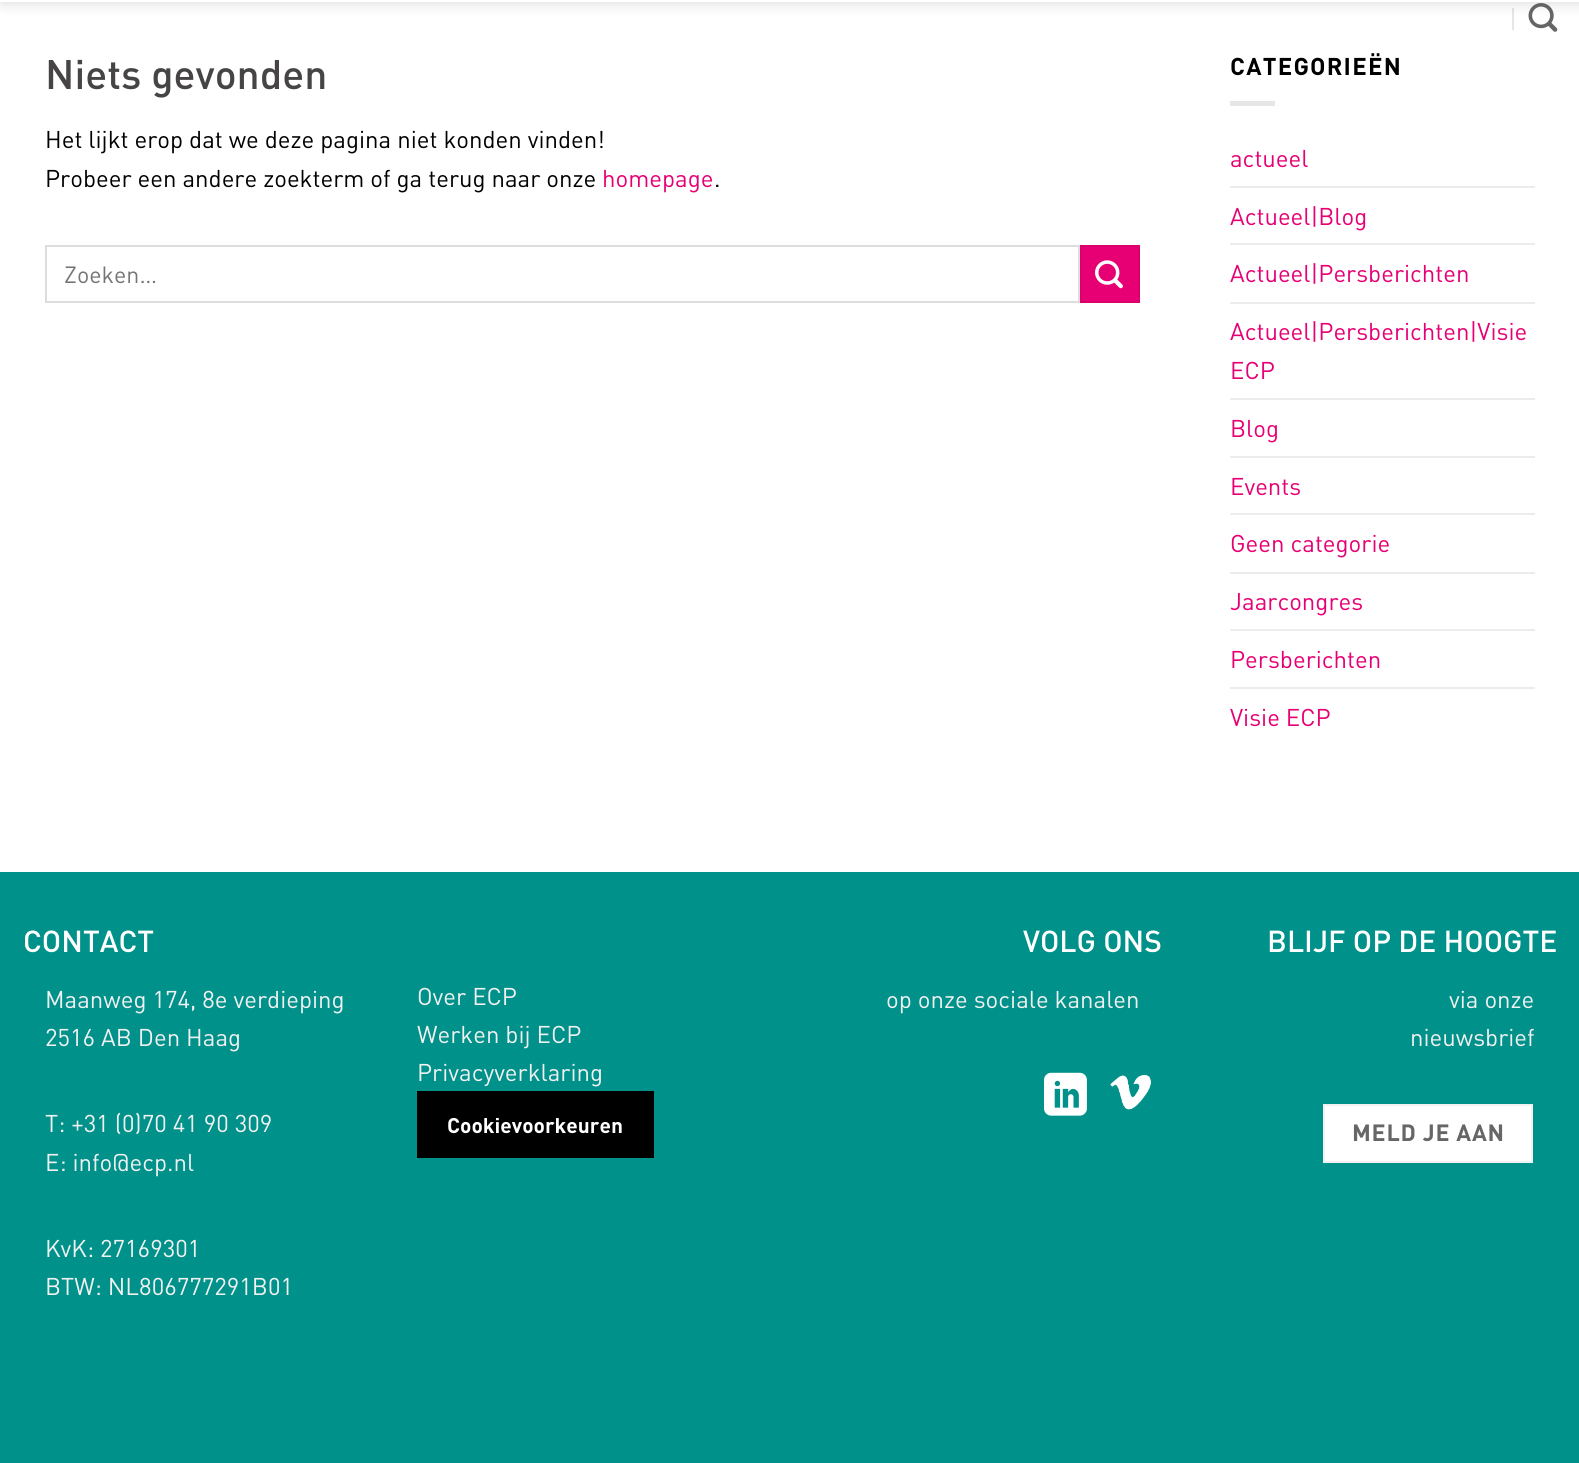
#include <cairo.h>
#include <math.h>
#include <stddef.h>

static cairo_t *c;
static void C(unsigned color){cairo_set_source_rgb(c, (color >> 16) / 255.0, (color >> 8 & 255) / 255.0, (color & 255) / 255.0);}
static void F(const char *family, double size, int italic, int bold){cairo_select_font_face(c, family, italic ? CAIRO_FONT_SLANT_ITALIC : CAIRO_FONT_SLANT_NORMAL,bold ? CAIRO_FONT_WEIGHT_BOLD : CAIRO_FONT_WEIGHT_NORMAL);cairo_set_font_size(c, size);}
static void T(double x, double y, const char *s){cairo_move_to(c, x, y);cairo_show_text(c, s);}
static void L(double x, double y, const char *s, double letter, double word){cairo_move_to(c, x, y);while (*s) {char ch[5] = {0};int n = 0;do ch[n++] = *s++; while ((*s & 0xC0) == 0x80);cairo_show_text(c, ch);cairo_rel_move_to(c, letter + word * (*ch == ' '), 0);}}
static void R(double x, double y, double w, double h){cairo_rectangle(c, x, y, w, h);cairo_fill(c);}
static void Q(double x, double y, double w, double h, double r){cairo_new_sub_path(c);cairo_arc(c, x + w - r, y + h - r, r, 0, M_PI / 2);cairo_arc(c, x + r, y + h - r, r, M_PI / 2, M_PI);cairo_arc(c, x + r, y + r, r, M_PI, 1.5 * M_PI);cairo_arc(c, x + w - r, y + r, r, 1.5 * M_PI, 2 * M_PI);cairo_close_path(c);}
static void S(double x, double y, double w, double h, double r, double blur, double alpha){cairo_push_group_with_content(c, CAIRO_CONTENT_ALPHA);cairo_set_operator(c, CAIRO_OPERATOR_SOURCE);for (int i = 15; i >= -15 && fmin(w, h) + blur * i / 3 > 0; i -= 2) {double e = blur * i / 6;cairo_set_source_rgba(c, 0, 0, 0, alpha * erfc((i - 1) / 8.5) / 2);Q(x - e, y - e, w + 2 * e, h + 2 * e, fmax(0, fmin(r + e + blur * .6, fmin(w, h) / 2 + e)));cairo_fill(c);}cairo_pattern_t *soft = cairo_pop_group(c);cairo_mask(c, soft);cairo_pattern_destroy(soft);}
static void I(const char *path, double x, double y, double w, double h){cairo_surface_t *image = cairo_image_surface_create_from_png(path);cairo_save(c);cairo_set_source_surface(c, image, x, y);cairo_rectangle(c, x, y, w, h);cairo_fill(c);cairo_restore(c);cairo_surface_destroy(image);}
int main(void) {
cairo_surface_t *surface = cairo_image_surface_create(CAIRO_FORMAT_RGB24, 1579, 1463);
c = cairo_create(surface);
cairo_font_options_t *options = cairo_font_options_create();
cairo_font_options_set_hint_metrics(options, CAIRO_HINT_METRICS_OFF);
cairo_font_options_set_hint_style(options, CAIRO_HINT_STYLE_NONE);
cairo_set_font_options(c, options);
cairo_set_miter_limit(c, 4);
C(0xffffff);
cairo_paint(c);
cairo_save(c);
cairo_set_fill_rule(c,CAIRO_FILL_RULE_EVEN_ODD);
cairo_new_path(c);
cairo_move_to(c,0,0);
cairo_line_to(c,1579,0);
cairo_line_to(c,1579,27);
cairo_line_to(c,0,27);
cairo_close_path(c);
cairo_move_to(c,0,-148);
cairo_line_to(c,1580,-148);
cairo_line_to(c,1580,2);
cairo_line_to(c,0,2);
cairo_close_path(c);
cairo_clip(c);
C(0x000000);
S(2,-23,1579,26,0,7.5,.15);
cairo_restore(c);
cairo_set_source_rgba(c,1,1,1,0.9);
R(0,1,1579,1);
cairo_set_source_rgba(c,0,0,0,0.1);
R(1512,8,2,22);
I("1.png",1528,3,30,29);
F("DIN Medium",40.75,0,0);
C(0x464444);
T(45,89,"Niets gevonden");
F("DIN",24,0,0);
C(0x000000);
T(45,148,"Het lijkt erop dat we deze pagina niet konden vinden!");
T(45,187,"Probeer een andere zoekterm of ga terug naar onze");
C(0xe60074);
T(602,187,"homepage");
C(0x000000);
T(714,187,".");
cairo_rectangle(c,46,246,1033,56);
C(0xdddddd);
cairo_stroke(c);
F("DIN",23.25,0,0);
C(0x757575);
T(64,283,"Zoeken…");
C(0xe60074);
cairo_rectangle(c,1081,246,58,56);
cairo_fill_preserve(c);
C(0xdb006e);
cairo_stroke(c);
I("2.png",1095,260,28,29);
F("DIN",24,0,1);
C(0x000000);
L(1230,75,"CATEGORIEËN",1.25,0);
C(0xe6e6e6);
R(1230,101,45,5);
F("DIN",24,0,0);
C(0xe60074);
T(1230,167,"actueel");
C(0xececec);
R(1230,186,305,2);
C(0xe60074);
T(1230,225,"Actueel|Blog");
C(0xececec);
R(1230,243,305,2);
C(0xe60074);
T(1230,282,"Actueel|Persberichten");
C(0xececec);
R(1230,302,305,2);
C(0xe60074);
T(1230,340,"Actueel|Persberichten|Visie");
T(1230,379,"ECP");
C(0xececec);
R(1230,398,305,2);
C(0xe60074);
T(1230,437,"Blog");
C(0xececec);
R(1230,456,305,2);
C(0xe60074);
T(1230,495,"Events");
C(0xececec);
R(1230,513,305,2);
C(0xe60074);
T(1230,552,"Geen categorie");
C(0xececec);
R(1230,572,305,2);
C(0xe60074);
T(1230,610,"Jaarcongres");
C(0xececec);
R(1230,629,305,2);
C(0xe60074);
T(1230,668,"Persberichten");
C(0xececec);
R(1230,687,305,2);
C(0xe60074);
T(1230,726,"Visie ECP");
C(0x00918a);
R(0,872,1579,591);
F("DIN Medium",30,0,0);
C(0xffffff);
T(23,952,"CONTACT");
F("DIN",24,0,0);
C(0xf1f1f1);
T(45,1008,"Maanweg 174, 8e verdieping");
T(45,1046,"2516 AB Den Haag");
T(45,1132,"T: +31 (0)70 41 90 309");
T(45,1171,"E: info@ecp.nl");
T(45,1257,"KvK: 27169301");
T(45,1295,"BTW: NL806777291B01");
T(417,1005,"Over ECP");
T(417,1043,"Werken bij ECP");
T(417,1081,"Privacyverklaring");
C(0x000000);
R(417,1091,237,67);
F("DIN",21,0,1);
C(0xffffff);
T(447,1133,"Cookievoorkeuren");
F("DIN Medium",30,0,0);
T(1023,952,"VOLG ONS");
F("DIN",24,0,0);
C(0xf1f1f1);
T(886,1008,"op onze sociale kanalen");
I("3.png",1044,1072,43,44);
I("4.png",1110,1074,41,36);
F("DIN Medium",30,0,0);
C(0xffffff);
T(1267,952,"BLIJF OP DE HOOGTE");
F("DIN",24,0,0);
C(0xf1f1f1);
T(1449,1008,"via onze");
T(1410,1046,"nieuwsbrief");
C(0xffffff);
cairo_rectangle(c,1324,1105,208,57);
cairo_fill_preserve(c);
C(0xf2f2f2);
cairo_stroke(c);
F("DIN",23.25,0,1);
C(0x666666);
L(1352,1141,"MELD JE AAN",.75,0);
cairo_surface_write_to_png(surface, "o.png");
cairo_font_options_destroy(options);
cairo_destroy(c);
cairo_surface_destroy(surface);
return 0;
}
